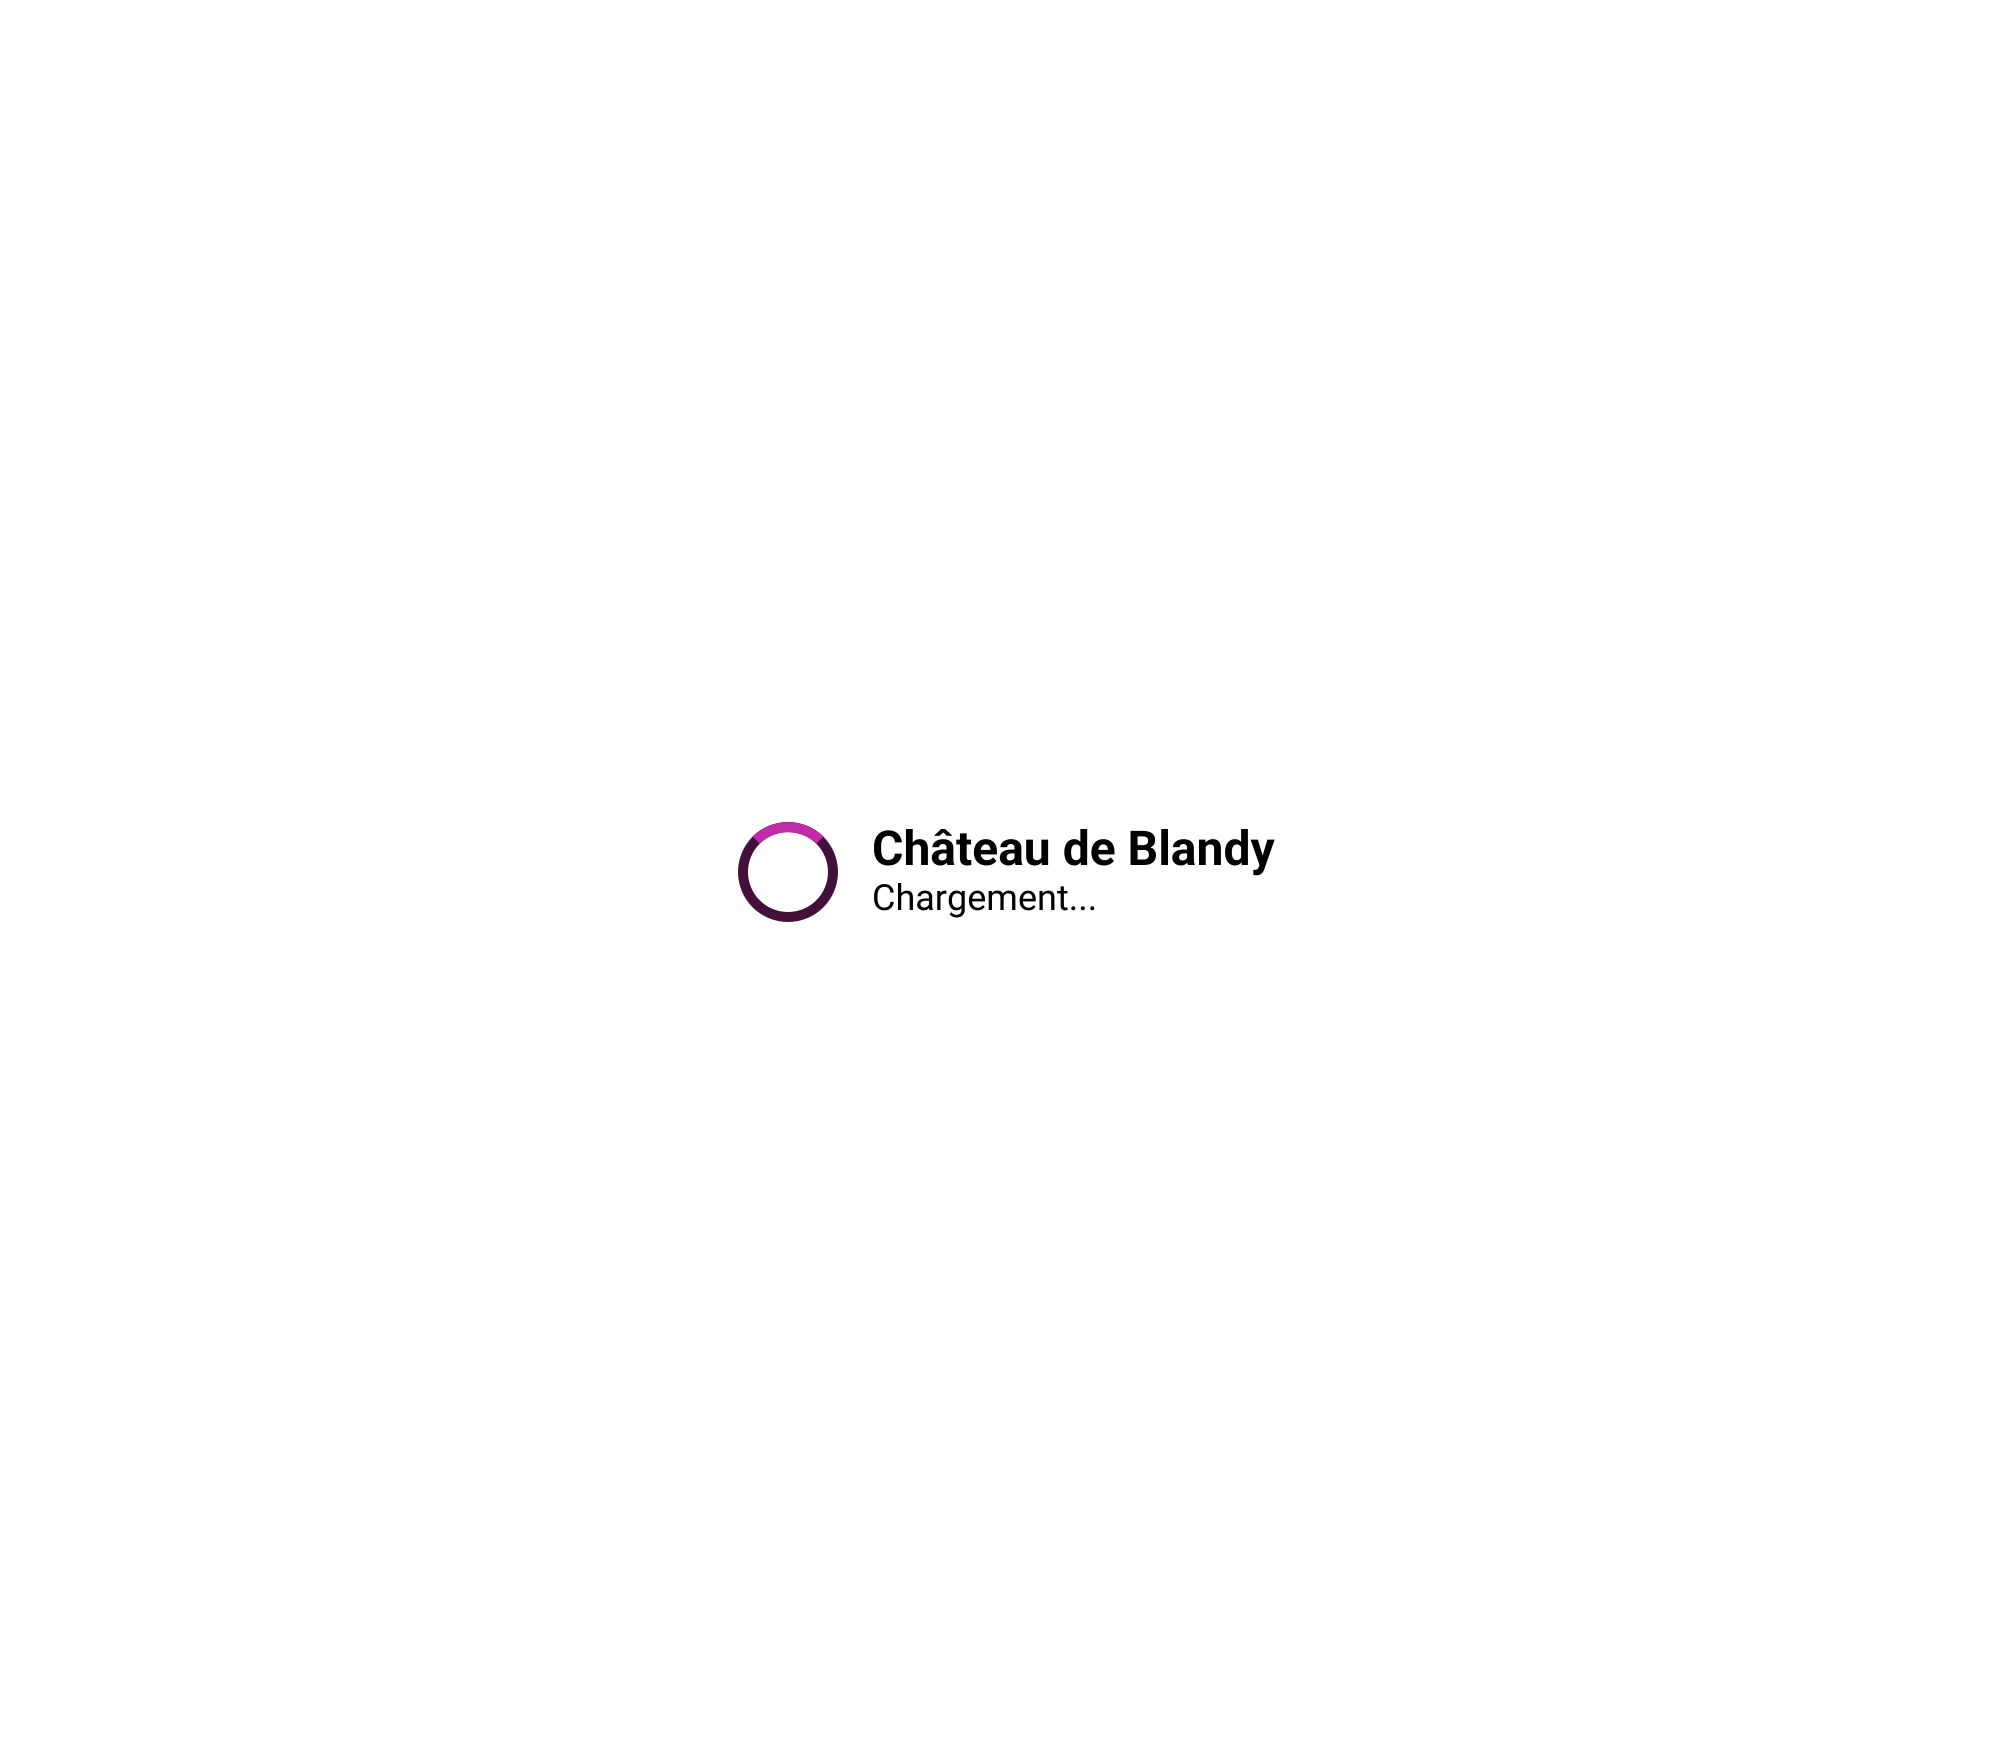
#include <cairo.h>
#include <math.h>
#include <stddef.h>

static cairo_t *c;
static void C(unsigned color){cairo_set_source_rgb(c, (color >> 16) / 255.0, (color >> 8 & 255) / 255.0, (color & 255) / 255.0);}
static void F(const char *family, double size, int italic, int bold){cairo_select_font_face(c, family, italic ? CAIRO_FONT_SLANT_ITALIC : CAIRO_FONT_SLANT_NORMAL,bold ? CAIRO_FONT_WEIGHT_BOLD : CAIRO_FONT_WEIGHT_NORMAL);cairo_set_font_size(c, size);}
static void T(double x, double y, const char *s){cairo_move_to(c, x, y);cairo_show_text(c, s);}
int main(void) {
cairo_surface_t *surface = cairo_image_surface_create(CAIRO_FORMAT_RGB24, 2011, 1741);
c = cairo_create(surface);
cairo_font_options_t *options = cairo_font_options_create();
cairo_font_options_set_hint_metrics(options, CAIRO_HINT_METRICS_OFF);
cairo_font_options_set_hint_style(options, CAIRO_HINT_STYLE_NONE);
cairo_set_font_options(c, options);
cairo_set_miter_limit(c, 4);
C(0xffffff);
cairo_paint(c);
cairo_arc(c,788,872,45,0,2 * M_PI);
C(0x430f3b);
cairo_set_line_width(c,10);
cairo_stroke(c);
cairo_new_path(c);
cairo_move_to(c,756,840);
cairo_curve_to(c,773.5,823,802.5,823,820,840);
C(0xc12aa8);
cairo_stroke(c);
F("Roboto",48,0,1);
C(0x000000);
T(872,865,"Château de Blandy");
F("Roboto",36,0,0);
T(872,910,"Chargement...");
cairo_surface_write_to_png(surface, "o.png");
cairo_font_options_destroy(options);
cairo_destroy(c);
cairo_surface_destroy(surface);
return 0;
}
